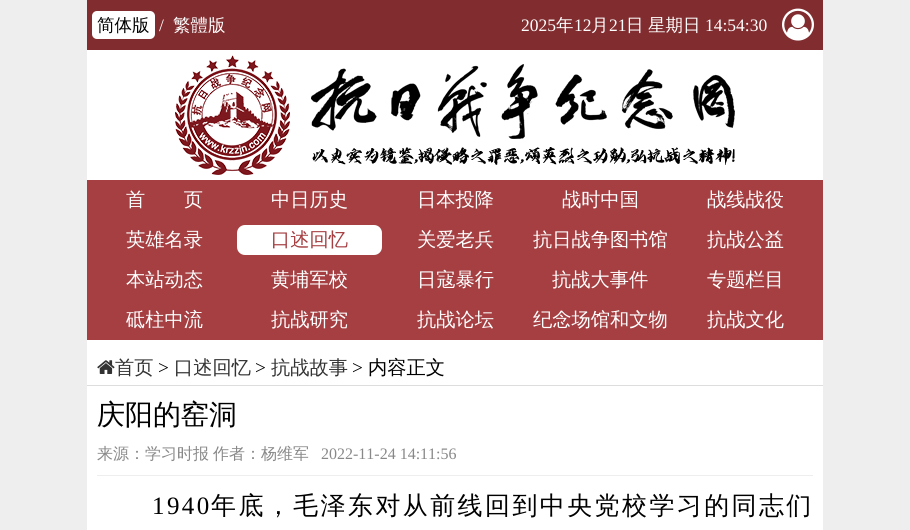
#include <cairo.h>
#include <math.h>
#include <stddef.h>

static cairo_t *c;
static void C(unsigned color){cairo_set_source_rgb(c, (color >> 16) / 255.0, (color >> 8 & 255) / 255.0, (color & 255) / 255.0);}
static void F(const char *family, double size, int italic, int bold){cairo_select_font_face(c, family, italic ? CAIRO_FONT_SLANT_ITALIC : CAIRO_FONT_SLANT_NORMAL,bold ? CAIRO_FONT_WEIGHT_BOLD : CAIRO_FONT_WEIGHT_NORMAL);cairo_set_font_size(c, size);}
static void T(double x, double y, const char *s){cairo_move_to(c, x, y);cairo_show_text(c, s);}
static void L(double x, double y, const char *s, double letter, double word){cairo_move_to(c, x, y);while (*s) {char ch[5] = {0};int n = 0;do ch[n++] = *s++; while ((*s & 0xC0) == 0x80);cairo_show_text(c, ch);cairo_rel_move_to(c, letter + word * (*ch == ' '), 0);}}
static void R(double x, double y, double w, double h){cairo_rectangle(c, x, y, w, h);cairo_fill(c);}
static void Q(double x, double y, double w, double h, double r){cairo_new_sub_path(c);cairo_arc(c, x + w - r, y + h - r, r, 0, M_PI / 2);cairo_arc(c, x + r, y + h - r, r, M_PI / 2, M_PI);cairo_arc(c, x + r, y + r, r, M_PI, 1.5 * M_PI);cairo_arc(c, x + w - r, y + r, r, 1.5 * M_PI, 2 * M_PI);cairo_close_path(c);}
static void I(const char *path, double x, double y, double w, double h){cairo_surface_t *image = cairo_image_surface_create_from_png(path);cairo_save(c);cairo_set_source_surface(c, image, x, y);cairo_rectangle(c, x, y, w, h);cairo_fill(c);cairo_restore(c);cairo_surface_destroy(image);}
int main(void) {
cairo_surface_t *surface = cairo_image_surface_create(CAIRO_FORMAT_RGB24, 910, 530);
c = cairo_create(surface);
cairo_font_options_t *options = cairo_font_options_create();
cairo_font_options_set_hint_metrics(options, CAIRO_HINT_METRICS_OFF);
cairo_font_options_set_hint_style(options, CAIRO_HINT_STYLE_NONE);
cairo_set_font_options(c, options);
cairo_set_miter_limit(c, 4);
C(0xeeeeee);
cairo_paint(c);
C(0xffffff);
R(87,50,736,480);
C(0x812c2f);
R(87,0,736,50);
C(0xffffff);
Q(92,11,63,28,5);
cairo_fill(c);
F("WenQuanYi Zen Hei Medium",17.5,0,0);
C(0x000000);
T(97,31,"简体版");
F("Liberation Serif",17.5,0,0);
C(0xffffff);
T(159,31,"/");
F("WenQuanYi Zen Hei Medium",17.5,0,0);
T(173,31,"繁體版");
F("Liberation Serif",17.5,0,0);
T(521,31,"2025");
F("WenQuanYi Zen Hei Medium",17.5,0,0);
T(556,31,"年");
F("Liberation Serif",17.5,0,0);
T(574,31,"12");
F("WenQuanYi Zen Hei Medium",17.5,0,0);
T(591,31,"月");
F("Liberation Serif",17.5,0,0);
T(609,31,"21");
F("WenQuanYi Zen Hei Medium",17.5,0,0);
T(626,31,"日");
T(648,31,"星期日");
F("Liberation Serif",17.5,0,0);
T(705,31,"14:54:30");
I("1.png",782,8,32,33);
I("2.png",175,55,560,120);
C(0xa53f42);
R(87,180,736,160);
F("WenQuanYi Zen Hei Medium",19.25,0,0);
C(0xffffff);
T(126,206,"首　　页");
T(271,206,"中日历史");
T(417,206,"日本投降");
T(562,206,"战时中国");
T(707,206,"战线战役");
T(126,246,"英雄名录");
Q(237,225,145,30,8);
cairo_fill(c);
C(0xa53f42);
T(271,246,"口述回忆");
C(0xffffff);
T(417,246,"关爱老兵");
T(533,246,"抗日战争图书馆");
T(707,246,"抗战公益");
T(126,286,"本站动态");
T(271,286,"黄埔军校");
T(417,286,"日寇暴行");
T(552,286,"抗战大事件");
T(707,286,"专题栏目");
T(126,326,"砥柱中流");
T(271,326,"抗战研究");
T(417,326,"抗战论坛");
T(533,326,"纪念场馆和文物");
T(707,326,"抗战文化");
C(0xdddddd);
R(87,385,736,1);
I("3.png",97,360,18,14);
C(0x333333);
T(115,374,"首页");
F("Liberation Serif",19.25,0,0);
C(0x000000);
T(158,374,">");
F("WenQuanYi Zen Hei Medium",19.25,0,0);
C(0x333333);
T(174,374,"口述回忆");
F("Liberation Serif",19.25,0,0);
C(0x000000);
T(255,374,">");
F("WenQuanYi Zen Hei Medium",19.25,0,0);
C(0x333333);
T(271,374,"抗战故事");
F("Liberation Serif",19.25,0,0);
C(0x000000);
T(352,374,">");
F("WenQuanYi Zen Hei Medium",19.25,0,0);
T(368,374,"内容正文");
C(0xeeeeee);
R(97,475,716,1);
F("WenQuanYi Zen Hei Medium",28,0,0);
C(0x000000);
T(97,424,"庆阳的窑洞");
F("WenQuanYi Zen Hei Medium",16,0,0);
C(0x888888);
T(97,459,"来源：学习时报");
T(213,459,"作者：杨维军");
F("Liberation Serif",16,0,0);
T(321,459,"2022-11-24 14:11:56");
F("Liberation Serif",25,0,0);
C(0x000000);
L(152,514,"1940",2.4,0);
F("WenQuanYi Zen Hei Medium",25,0,0);
L(211,514,"年底，毛泽东对从前线回到中央党校学习的同志们",2.4,0);
cairo_surface_write_to_png(surface, "o.png");
cairo_font_options_destroy(options);
cairo_destroy(c);
cairo_surface_destroy(surface);
return 0;
}
